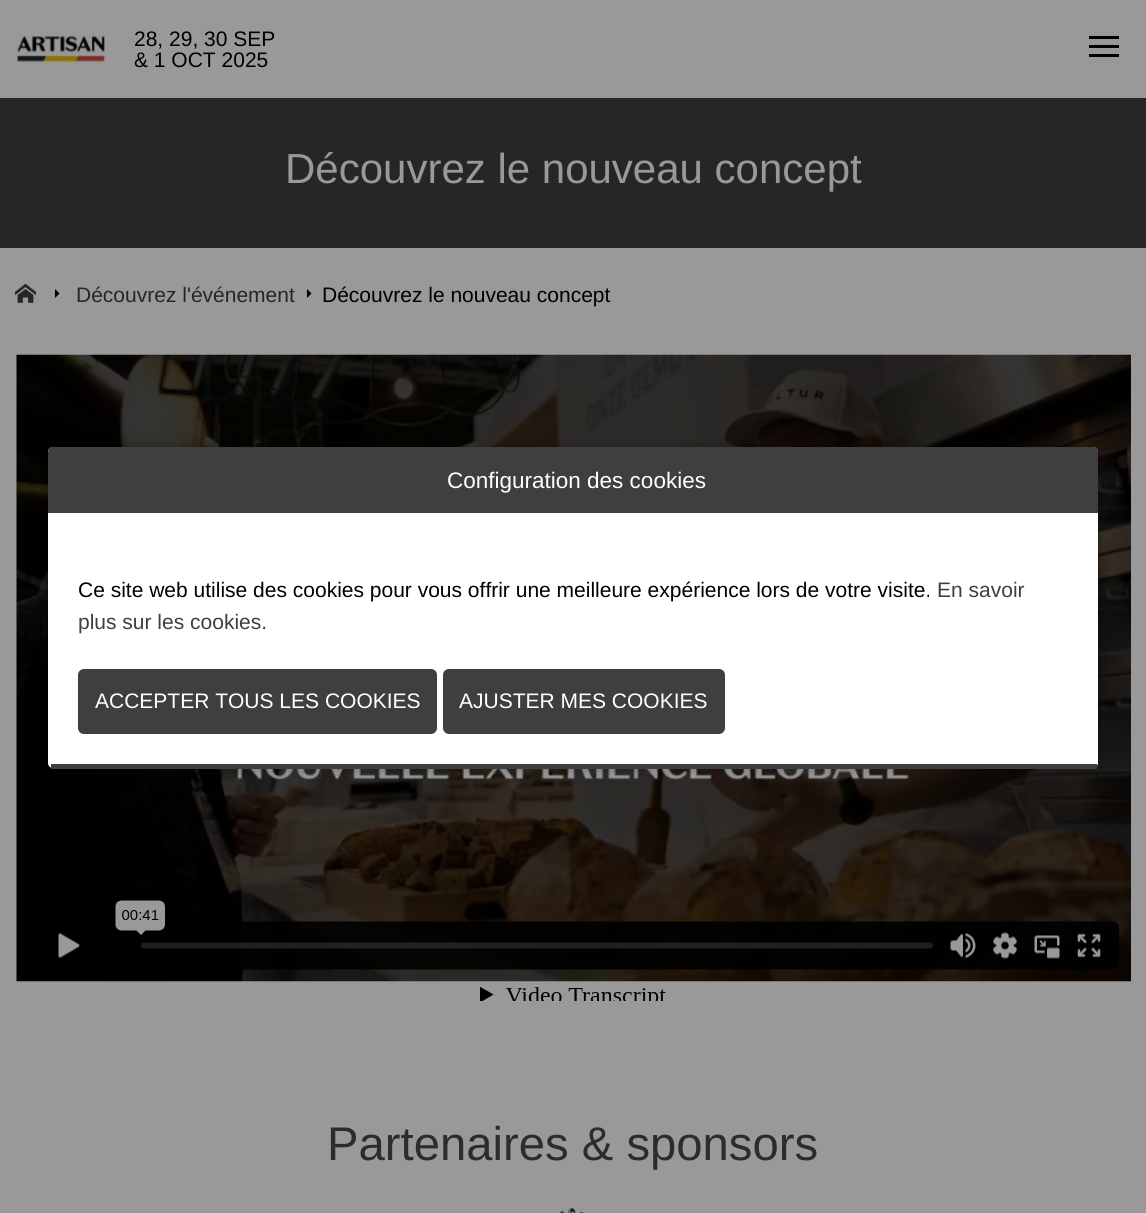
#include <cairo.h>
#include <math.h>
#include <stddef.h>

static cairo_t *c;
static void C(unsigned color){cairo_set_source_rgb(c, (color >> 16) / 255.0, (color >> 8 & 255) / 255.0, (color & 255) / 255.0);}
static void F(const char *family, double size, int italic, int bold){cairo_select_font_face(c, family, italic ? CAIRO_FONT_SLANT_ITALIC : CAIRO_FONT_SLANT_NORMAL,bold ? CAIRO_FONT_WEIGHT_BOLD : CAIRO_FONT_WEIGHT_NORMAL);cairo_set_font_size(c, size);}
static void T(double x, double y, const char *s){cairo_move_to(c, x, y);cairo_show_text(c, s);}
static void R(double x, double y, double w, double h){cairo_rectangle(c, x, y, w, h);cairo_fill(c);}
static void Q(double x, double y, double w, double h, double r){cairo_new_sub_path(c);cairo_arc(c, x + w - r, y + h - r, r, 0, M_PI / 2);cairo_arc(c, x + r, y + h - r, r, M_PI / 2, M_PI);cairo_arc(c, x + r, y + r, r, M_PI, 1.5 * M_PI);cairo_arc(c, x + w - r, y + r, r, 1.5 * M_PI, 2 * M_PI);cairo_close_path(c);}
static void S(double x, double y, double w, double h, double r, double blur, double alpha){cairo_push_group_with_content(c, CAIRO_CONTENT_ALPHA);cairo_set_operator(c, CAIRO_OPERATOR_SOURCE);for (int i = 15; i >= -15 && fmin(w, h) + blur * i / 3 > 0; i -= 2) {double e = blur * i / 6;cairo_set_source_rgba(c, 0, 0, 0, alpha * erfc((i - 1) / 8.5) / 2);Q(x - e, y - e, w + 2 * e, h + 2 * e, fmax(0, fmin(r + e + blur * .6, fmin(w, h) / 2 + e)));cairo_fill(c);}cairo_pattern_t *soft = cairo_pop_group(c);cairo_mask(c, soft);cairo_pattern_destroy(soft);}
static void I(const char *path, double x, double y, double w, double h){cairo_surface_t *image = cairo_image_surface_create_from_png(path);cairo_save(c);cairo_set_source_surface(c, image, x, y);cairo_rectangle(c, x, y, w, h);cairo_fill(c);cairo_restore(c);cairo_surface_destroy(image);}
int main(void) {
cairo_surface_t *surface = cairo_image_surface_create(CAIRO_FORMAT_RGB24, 1146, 1213);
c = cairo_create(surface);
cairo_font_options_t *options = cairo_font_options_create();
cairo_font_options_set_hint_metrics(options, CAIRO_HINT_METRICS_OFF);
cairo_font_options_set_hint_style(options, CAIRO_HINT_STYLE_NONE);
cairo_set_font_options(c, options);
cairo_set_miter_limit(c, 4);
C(0x999999);
cairo_paint(c);
I("1.png",16,35,90,29);
F("Liberation Sans",21,0,0);
C(0x000000);
T(134,46,"28, 29, 30 SEP");
T(134,67,"& 1 OCT 2025");
R(1089,36,30,3);
R(1089,45,30,3);
R(1089,54,30,3);
C(0x262626);
R(0,98,1146,150);
F("Liberation Sans",42,0,0);
C(0x999999);
T(285,183,"Découvrez le nouveau concept");
I("2.png",15,283,21,20);
C(0x000000);
cairo_new_path(c);
cairo_move_to(c,55,298);
cairo_line_to(c,55,289);
cairo_line_to(c,59.5,293.5);
cairo_close_path(c);
cairo_fill(c);
F("Liberation Sans",21,0,0);
C(0x262626);
T(76,302,"Découvrez l'événement");
C(0x000000);
cairo_new_path(c);
cairo_move_to(c,307,298);
cairo_line_to(c,307,289);
cairo_line_to(c,311.5,293.5);
cairo_close_path(c);
cairo_fill(c);
T(322,302,"Découvrez le nouveau concept");
I("3.png",16,354,1115,647);
C(0x000000);
S(48,447,1050,321,5,6,.3);
C(0xffffff);
Q(48,447,1050,321,5);
cairo_fill(c);
C(0x3f3f3f);
R(51,764,1046,5);
cairo_new_path(c);
cairo_move_to(c,52,447);
cairo_curve_to(c,50,447,48,449,48,452);
cairo_line_to(c,48,513);
cairo_line_to(c,1098,513);
cairo_line_to(c,1098,452);
cairo_curve_to(c,1098,449,1096,447,1094,447);
cairo_close_path(c);
cairo_fill(c);
F("Liberation Sans",22.5,0,0);
C(0xffffff);
T(447,488,"Configuration des cookies");
F("Liberation Sans",21,0,0);
C(0x000000);
T(78,597,"Ce site web utilise des cookies pour vous offrir une meilleure expérience lors de votre visite.");
C(0x3f3f3f);
T(937,597,"En savoir");
T(78,629,"plus sur les cookies.");
Q(79,670,357,63,5);
cairo_fill_preserve(c);
cairo_stroke(c);
C(0xffffff);
T(95,708,"ACCEPTER TOUS LES COOKIES");
C(0x3f3f3f);
Q(444,670,280,63,5);
cairo_fill_preserve(c);
cairo_stroke(c);
C(0xffffff);
T(459,708,"AJUSTER MES COOKIES");
F("Liberation Sans",47.25,0,0);
C(0x2c2c2c);
T(327,1160,"Partenaires & sponsors");
I("4.png",559,1208,25,5);
cairo_surface_write_to_png(surface, "o.png");
cairo_font_options_destroy(options);
cairo_destroy(c);
cairo_surface_destroy(surface);
return 0;
}
